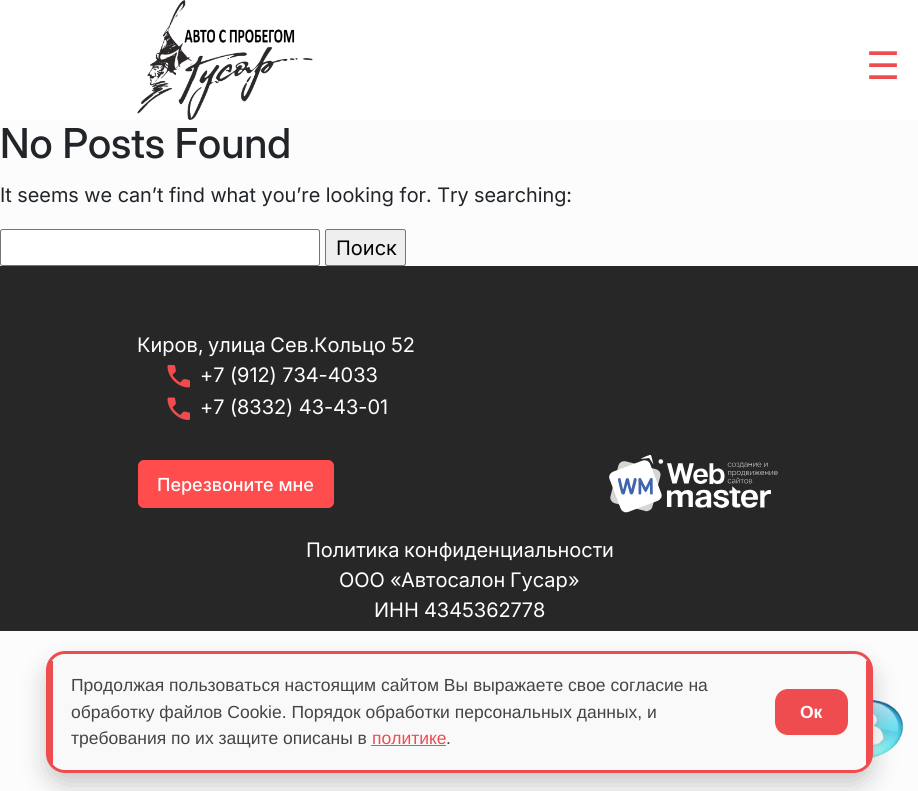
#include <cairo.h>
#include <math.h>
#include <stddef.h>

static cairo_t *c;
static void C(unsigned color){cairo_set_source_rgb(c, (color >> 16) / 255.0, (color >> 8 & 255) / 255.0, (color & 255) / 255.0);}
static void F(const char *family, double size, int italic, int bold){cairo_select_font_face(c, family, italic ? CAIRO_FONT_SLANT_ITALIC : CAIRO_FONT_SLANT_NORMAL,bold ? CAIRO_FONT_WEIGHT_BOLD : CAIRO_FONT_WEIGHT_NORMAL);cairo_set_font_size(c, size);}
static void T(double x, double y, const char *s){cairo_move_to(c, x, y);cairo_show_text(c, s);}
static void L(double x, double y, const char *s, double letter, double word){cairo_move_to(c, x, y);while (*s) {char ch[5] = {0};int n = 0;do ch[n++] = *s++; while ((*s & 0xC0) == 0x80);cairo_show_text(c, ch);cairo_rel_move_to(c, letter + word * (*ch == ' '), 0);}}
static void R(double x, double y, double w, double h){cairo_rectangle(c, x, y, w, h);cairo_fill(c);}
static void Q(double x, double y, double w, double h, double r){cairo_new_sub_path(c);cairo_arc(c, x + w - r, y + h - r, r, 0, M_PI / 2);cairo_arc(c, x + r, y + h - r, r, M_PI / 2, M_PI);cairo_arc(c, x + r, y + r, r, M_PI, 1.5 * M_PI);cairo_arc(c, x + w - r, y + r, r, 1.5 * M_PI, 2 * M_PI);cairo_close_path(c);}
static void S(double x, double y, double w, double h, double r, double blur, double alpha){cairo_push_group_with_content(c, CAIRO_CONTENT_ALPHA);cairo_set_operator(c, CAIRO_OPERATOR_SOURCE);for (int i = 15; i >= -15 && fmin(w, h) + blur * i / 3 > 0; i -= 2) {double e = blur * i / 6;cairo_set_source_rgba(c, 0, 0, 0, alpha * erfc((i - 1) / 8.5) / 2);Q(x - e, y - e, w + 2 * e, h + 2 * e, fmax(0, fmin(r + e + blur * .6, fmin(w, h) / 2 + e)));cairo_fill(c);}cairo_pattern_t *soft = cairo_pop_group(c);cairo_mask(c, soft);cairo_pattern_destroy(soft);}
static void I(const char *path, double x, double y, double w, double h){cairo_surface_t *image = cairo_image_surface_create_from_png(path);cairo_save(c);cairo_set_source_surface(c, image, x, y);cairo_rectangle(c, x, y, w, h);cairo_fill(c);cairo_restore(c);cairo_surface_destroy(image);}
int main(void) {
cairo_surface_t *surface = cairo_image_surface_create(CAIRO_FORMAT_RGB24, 918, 791);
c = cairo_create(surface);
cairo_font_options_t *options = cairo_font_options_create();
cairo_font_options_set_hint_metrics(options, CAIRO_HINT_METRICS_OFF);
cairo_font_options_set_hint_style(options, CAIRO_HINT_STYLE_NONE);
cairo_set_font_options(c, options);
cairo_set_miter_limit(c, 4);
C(0xfcfcfc);
cairo_paint(c);
C(0xffffff);
R(0,0,918,120);
I("1.png",137,0,176,120);
F("DejaVu Sans",38,0,0);
C(0xee4c4f);
T(866,79,"☰");
F("Inter Medium",41.25,0,0);
C(0x212529);
T(0,158,"No Posts Found");
F("Inter",20,0,0);
T(0,202,"It seems we can’t find what you’re looking for. Try searching:");
C(0xffffff);
Q(.5,229.5,319,36,2);
cairo_fill_preserve(c);
C(0x767676);
cairo_set_line_width(c,1);
cairo_stroke(c);
C(0xefefef);
Q(325.5,229.5,80,36,2);
cairo_fill_preserve(c);
C(0x767676);
cairo_stroke(c);
F("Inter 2",20,0,0);
C(0x000000);
T(336,255,"Поиск");
C(0x272727);
R(0,266,918,365);
C(0xffffff);
T(137,352,"Киров");
F("Inter",20,0,0);
T(198,352,",");
F("Inter 2",20,0,0);
L(208,352,"улица Сев",0,-1);
F("Inter",20,0,0);
T(309,352,".");
F("Inter 2",20,0,0);
T(314,352,"Кольцо");
F("Inter",20,0,0);
T(391,352,"52");
I("2.png",167,365,23,23);
T(200,382,"+7 (912) 734-4033");
I("3.png",167,397,23,23);
T(200,414,"+7 (8332) 43-43-01");
C(0xff4d4d);
Q(138,460,196,48,6);
cairo_fill(c);
F("Inter 2 Medium",18,0,0);
C(0xffffff);
T(157,491,"Перезвоните мне");
I("4.png",609,455,169,58);
F("Inter 2",20,0,0);
L(306,557,"Политика конфиденциальности",0,-1);
T(339,587,"ООО");
F("Inter",20,0,0);
T(390,587,"«");
F("Inter 2",20,0,0);
L(401,587,"Автосалон Гусар",0,-1);
F("Inter",20,0,0);
T(568,587,"»");
F("Inter 2",20,0,0);
T(374,617,"ИНН");
F("Inter",20,0,0);
T(424,617,"4345362778");
I("5.png",865,699,39,60);
cairo_save(c);
cairo_set_fill_rule(c,CAIRO_FILL_RULE_EVEN_ODD);
cairo_new_path(c);
cairo_move_to(c,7,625);
cairo_line_to(c,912,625);
cairo_line_to(c,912,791);
cairo_line_to(c,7,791);
cairo_close_path(c);
cairo_move_to(c,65,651);
cairo_line_to(c,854,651);
cairo_curve_to(c,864.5,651,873,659.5,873,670);
cairo_line_to(c,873,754);
cairo_curve_to(c,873,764.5,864.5,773,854,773);
cairo_line_to(c,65,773);
cairo_curve_to(c,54.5,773,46,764.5,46,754);
cairo_line_to(c,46,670);
cairo_curve_to(c,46,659.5,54.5,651,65,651);
cairo_close_path(c);
cairo_clip(c);
C(0x000000);
S(46,664,827,121,19,12.5,.2);
cairo_restore(c);
C(0xf9f9f9);
cairo_new_path(c);
cairo_move_to(c,65,654);
cairo_line_to(c,854,654);
cairo_curve_to(c,861,654,866,661,866,670);
cairo_line_to(c,866,754);
cairo_curve_to(c,866,763,861,770,854,770);
cairo_line_to(c,65,770);
cairo_curve_to(c,58,770,52,763,52,754);
cairo_line_to(c,52,670);
cairo_curve_to(c,52,661,58,654,65,654);
cairo_close_path(c);
cairo_fill(c);
Q(47.5,652.5,824,119,17.5);
C(0xee4c4f);
cairo_set_line_width(c,3);
cairo_stroke(c);
R(866,661,4,103);
R(49,661,4,103);
F("Liberation Sans",17.5,0,0);
C(0x444444);
T(71,691,"Продолжая пользоваться настоящим сайтом Вы выражаете свое согласие на");
T(71,718,"обработку файлов Cookie. Порядок обработки персональных данных, и");
T(71,744,"требования по их защите описаны в");
C(0xee4c4f);
T(372,744,"политике");
C(0x444444);
T(446,744,".");
C(0xee4c4f);
R(371,745,75,1);
Q(775,689,73,46,13);
cairo_fill(c);
F("Liberation Sans",17.5,0,1);
C(0xffffff);
T(800,718,"Ок");
cairo_surface_write_to_png(surface, "o.png");
cairo_font_options_destroy(options);
cairo_destroy(c);
cairo_surface_destroy(surface);
return 0;
}
